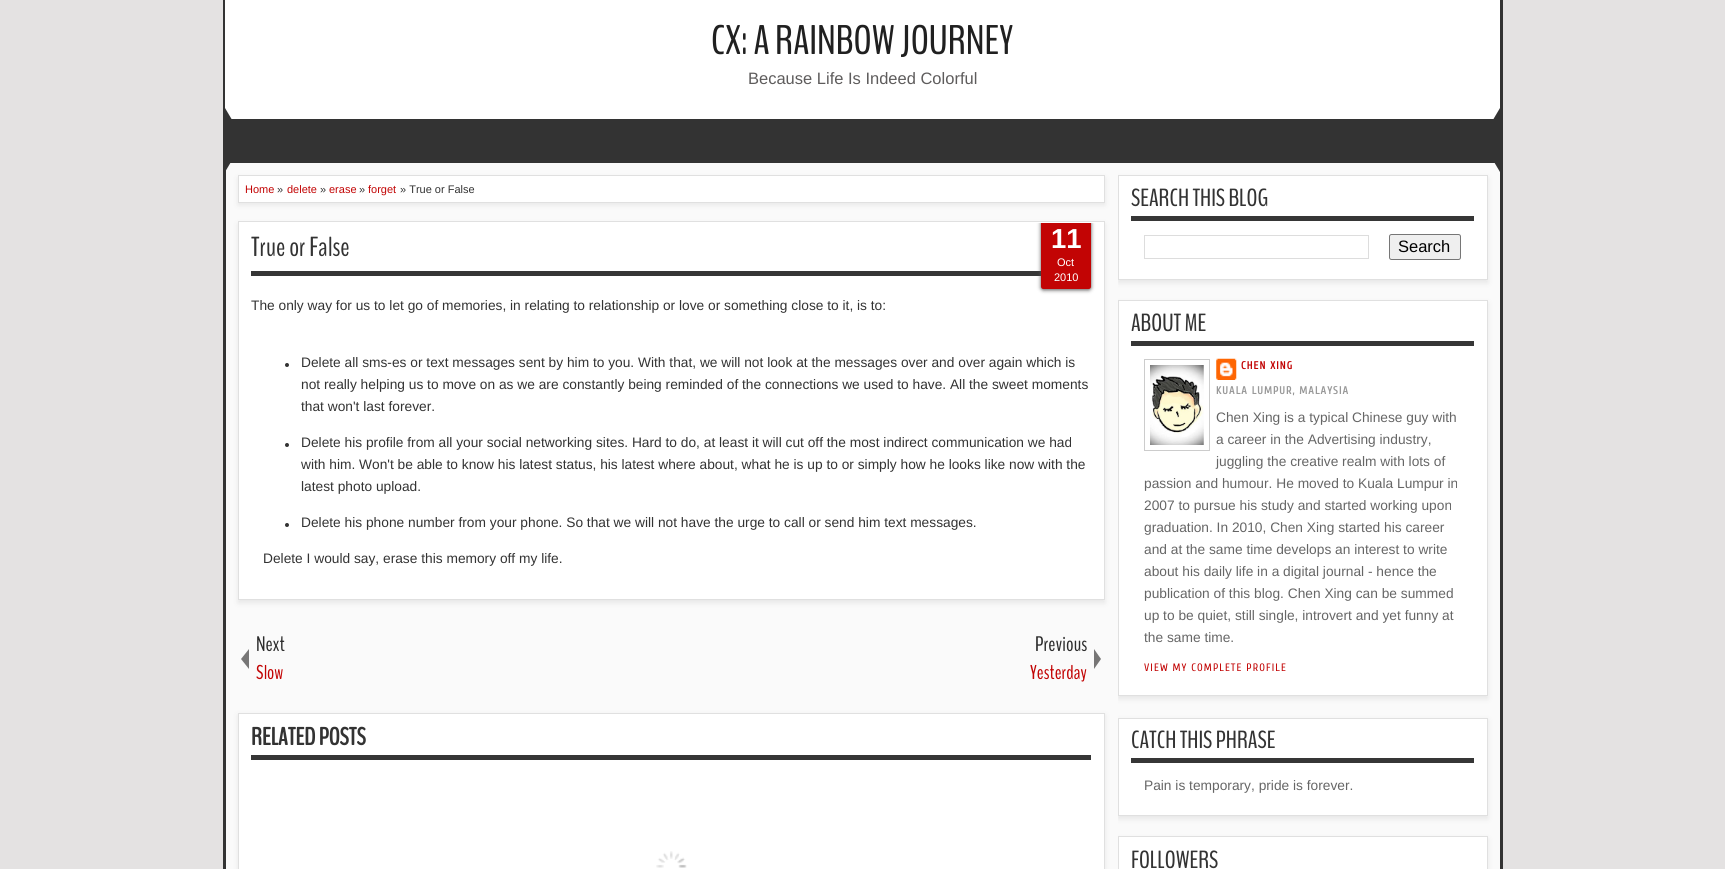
#include <cairo.h>
#include <math.h>
#include <stddef.h>

static cairo_t *c;
static void C(unsigned color){cairo_set_source_rgb(c, (color >> 16) / 255.0, (color >> 8 & 255) / 255.0, (color & 255) / 255.0);}
static void F(const char *family, double size, int italic, int bold){cairo_select_font_face(c, family, italic ? CAIRO_FONT_SLANT_ITALIC : CAIRO_FONT_SLANT_NORMAL,bold ? CAIRO_FONT_WEIGHT_BOLD : CAIRO_FONT_WEIGHT_NORMAL);cairo_set_font_size(c, size);}
static void T(double x, double y, const char *s){cairo_move_to(c, x, y);cairo_show_text(c, s);}
static void L(double x, double y, const char *s, double letter, double word){cairo_move_to(c, x, y);while (*s) {char ch[5] = {0};int n = 0;do ch[n++] = *s++; while ((*s & 0xC0) == 0x80);cairo_show_text(c, ch);cairo_rel_move_to(c, letter + word * (*ch == ' '), 0);}}
static void R(double x, double y, double w, double h){cairo_rectangle(c, x, y, w, h);cairo_fill(c);}
static void Q(double x, double y, double w, double h, double r){cairo_new_sub_path(c);cairo_arc(c, x + w - r, y + h - r, r, 0, M_PI / 2);cairo_arc(c, x + r, y + h - r, r, M_PI / 2, M_PI);cairo_arc(c, x + r, y + r, r, M_PI, 1.5 * M_PI);cairo_arc(c, x + w - r, y + r, r, 1.5 * M_PI, 2 * M_PI);cairo_close_path(c);}
static void S(double x, double y, double w, double h, double r, double blur, double alpha){cairo_push_group_with_content(c, CAIRO_CONTENT_ALPHA);cairo_set_operator(c, CAIRO_OPERATOR_SOURCE);for (int i = 15; i >= -15 && fmin(w, h) + blur * i / 3 > 0; i -= 2) {double e = blur * i / 6;cairo_set_source_rgba(c, 0, 0, 0, alpha * erfc((i - 1) / 8.5) / 2);Q(x - e, y - e, w + 2 * e, h + 2 * e, fmax(0, fmin(r + e + blur * .6, fmin(w, h) / 2 + e)));cairo_fill(c);}cairo_pattern_t *soft = cairo_pop_group(c);cairo_mask(c, soft);cairo_pattern_destroy(soft);}
static void I(const char *path, double x, double y, double w, double h){cairo_surface_t *image = cairo_image_surface_create_from_png(path);cairo_save(c);cairo_set_source_surface(c, image, x, y);cairo_rectangle(c, x, y, w, h);cairo_fill(c);cairo_restore(c);cairo_surface_destroy(image);}
int main(void) {
cairo_surface_t *surface = cairo_image_surface_create(CAIRO_FORMAT_RGB24, 1725, 869);
c = cairo_create(surface);
cairo_font_options_t *options = cairo_font_options_create();
cairo_font_options_set_hint_metrics(options, CAIRO_HINT_METRICS_OFF);
cairo_font_options_set_hint_style(options, CAIRO_HINT_STYLE_NONE);
cairo_set_font_options(c, options);
cairo_set_miter_limit(c, 4);
C(0xe4e2e2);
cairo_paint(c);
C(0xfafafa);
R(226,163,1274,706);
C(0x333333);
R(1500,0,3,869);
R(223,0,3,869);
C(0xffffff);
R(225,0,1275,119);
F("BenchNine",41.25,0,0);
C(0x202020);
T(711,54,"CX: A RAINBOW JOURNEY");
F("Liberation Sans",16.5,0,0);
C(0x5e5c5c);
T(748,84,"Because Life Is Indeed Colorful");
C(0x333333);
R(230,119,1265,44);
C(0xe7e7e7);
S(238,178,867,27,0,2.5,1);
C(0x333333);
cairo_new_path(c);
cairo_move_to(c,225,172);
cairo_line_to(c,225,108);
cairo_line_to(c,244,140);
cairo_close_path(c);
cairo_fill(c);
cairo_save(c);
cairo_rectangle(c,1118,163,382,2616);
cairo_clip(c);
C(0xe7e7e7);
S(1118,178,370,105,0,2.5,1);
cairo_restore(c);
cairo_new_path(c);
cairo_move_to(c,1500,108);
cairo_line_to(c,1500,172);
cairo_line_to(c,1481,140);
cairo_close_path(c);
cairo_fill(c);
C(0xffffff);
cairo_rectangle(c,238.5,175.5,866,27);
cairo_fill_preserve(c);
C(0xe0e0e0);
cairo_set_line_width(c,1);
cairo_stroke(c);
F("Liberation Sans",11,0,0);
C(0xc20404);
T(245,193,"Home");
C(0x333333);
T(277,193,"»");
C(0xc20404);
T(287,193,"delete");
C(0x333333);
T(320,193,"»");
C(0xc20404);
T(329,193,"erase");
C(0x333333);
T(359,193,"»");
C(0xc20404);
T(368,193,"forget");
C(0x333333);
T(400,193,"» True or False");
C(0xe7e7e7);
S(238,224,867,379,0,2.5,1);
C(0xffffff);
cairo_rectangle(c,238.5,221.5,866,378);
cairo_fill_preserve(c);
C(0xe0e0e0);
cairo_stroke(c);
C(0x363636);
R(251,271,790,5);
F("BenchNine",27.5,0,0);
C(0x333333);
T(251,256,"True or False");
cairo_save(c);
cairo_rectangle(c,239,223,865,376);
cairo_clip(c);
C(0x555454);
S(1041,221,50,69,2.5,2,1);
cairo_restore(c);
C(0xc20404);
cairo_new_path(c);
cairo_move_to(c,1041,223);
cairo_line_to(c,1091,223);
cairo_line_to(c,1091,286.5);
cairo_curve_to(c,1091,288,1090,289,1088.5,289);
cairo_line_to(c,1043.5,289);
cairo_curve_to(c,1042,289,1041,288,1041,286.5);
cairo_close_path(c);
cairo_fill(c);
F("Liberation Sans",27.5,0,1);
C(0xffffff);
T(1051,248,"11");
F("Liberation Sans",11,0,0);
T(1057,266,"Oct");
T(1054,281,"2010");
F("Liberation Sans",13.75,0,0);
C(0x333333);
T(251,310,"The only way for us to let go of memories, in relating to relationship or love or something close to it, is to:");
cairo_new_path(c);
cairo_arc(c,287,365,2,0,2 * M_PI);
cairo_fill(c);
T(301,367,"Delete all sms-es or text messages sent by him to you. With that, we will not look at the messages over and over again which is");
T(301,389,"not really helping us to move on as we are constantly being reminded of the connections we used to have. All the sweet moments");
T(301,411,"that won't last forever.");
cairo_new_path(c);
cairo_arc(c,287,445,2,0,2 * M_PI);
cairo_fill(c);
T(301,447,"Delete his profile from all your social networking sites. Hard to do, at least it will cut off the most indirect communication we had");
T(301,469,"with him. Won't be able to know his latest status, his latest where about, what he is up to or simply how he looks like now with the");
T(301,491,"latest photo upload.");
cairo_new_path(c);
cairo_arc(c,287,525,2,0,2 * M_PI);
cairo_fill(c);
T(301,527,"Delete his phone number from your phone. So that we will not have the urge to call or send him text messages.");
T(263,563,"Delete I would say, erase this memory off my life.");
F("BenchNine",21,0,0);
C(0x2c2c2c);
T(256,651,"Next");
C(0x777676);
cairo_new_path(c);
cairo_move_to(c,249,649);
cairo_line_to(c,249,669);
cairo_line_to(c,241,659);
cairo_close_path(c);
cairo_fill(c);
F("BenchNine",20,0,0);
C(0xc20404);
T(256,679,"Slow");
F("BenchNine",21,0,0);
C(0x2c2c2c);
T(1035,651,"Previous");
C(0x777676);
cairo_new_path(c);
cairo_move_to(c,1094,669);
cairo_line_to(c,1094,649);
cairo_line_to(c,1101,659);
cairo_close_path(c);
cairo_fill(c);
F("BenchNine",20,0,0);
C(0xc20404);
T(1030,679,"Yesterday");
C(0xe7e7e7);
S(238,715,867,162,0,2.5,1);
C(0xffffff);
cairo_rectangle(c,238.5,713.5,866,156);
cairo_fill_preserve(c);
C(0xe0e0e0);
cairo_stroke(c);
C(0x363636);
R(251,755,840,5);
F("BenchNine",24.75,0,1);
C(0x333333);
T(251,745,"RELATED POSTS");
I("1.png",656,851,31,17);
C(0xffffff);
cairo_rectangle(c,1118.5,175.5,369,104);
cairo_fill_preserve(c);
C(0xe0e0e0);
cairo_stroke(c);
C(0x363636);
R(1131,216,343,5);
F("BenchNine",24.75,0,0);
C(0x333333);
T(1131,206,"SEARCH THIS BLOG");
cairo_rectangle(c,1144.5,235.5,224,23);
C(0xdddddd);
cairo_stroke(c);
C(0xefefef);
Q(1389.5,234.5,71,25,2);
cairo_fill_preserve(c);
C(0x767676);
cairo_stroke(c);
F("Liberation Sans",16.5,0,0);
C(0x000000);
T(1398,252,"Search");
cairo_save(c);
cairo_rectangle(c,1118,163,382,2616);
cairo_clip(c);
C(0xe7e7e7);
S(1118,303,370,396,0,2.5,1);
cairo_restore(c);
C(0xffffff);
cairo_rectangle(c,1118.5,300.5,369,395);
cairo_fill_preserve(c);
C(0xe0e0e0);
cairo_stroke(c);
C(0x363636);
R(1131,341,343,5);
F("BenchNine",24.75,0,0);
C(0x333333);
T(1131,331,"ABOUT ME");
cairo_rectangle(c,1144.5,359.5,65,91);
C(0xcccccc);
cairo_stroke(c);
I("2.png",1150,365,54,80);
I("3.png",1216,358,21,22);
F("Cuprum",10.75,0,1);
C(0xc20404);
L(1241,369,"CHEN XING",1.1,0);
C(0x999999);
L(1216,394,"KUALA LUMPUR, MALAYSIA",1.1,0);
F("Liberation Sans",13.75,0,0);
C(0x666666);
T(1216,422,"Chen Xing is a typical Chinese guy with");
T(1216,444,"a career in the Advertising industry,");
T(1216,466,"juggling the creative realm with lots of");
T(1144,488,"passion and humour. He moved to Kuala Lumpur in");
T(1144,510,"2007 to pursue his study and started working upon");
T(1144,532,"graduation. In 2010, Chen Xing started his career");
T(1144,554,"and at the same time develops an interest to write");
T(1144,576,"about his daily life in a digital journal - hence the");
T(1144,598,"publication of this blog. Chen Xing can be summed");
T(1144,620,"up to be quiet, still single, introvert and yet funny at");
T(1144,642,"the same time.");
F("Cuprum",10.75,0,0);
C(0xc20404);
L(1144,671,"VIEW MY COMPLETE PROFILE",1.1,0);
cairo_save(c);
cairo_rectangle(c,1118,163,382,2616);
cairo_clip(c);
C(0xe7e7e7);
S(1118,720,370,99,0,2.5,1);
cairo_restore(c);
C(0xffffff);
cairo_rectangle(c,1118.5,718.5,369,97);
cairo_fill_preserve(c);
C(0xe0e0e0);
cairo_stroke(c);
C(0x363636);
R(1131,758,343,5);
F("BenchNine",24.75,0,0);
C(0x333333);
T(1131,748,"CATCH THIS PHRASE");
F("Liberation Sans",13.75,0,0);
C(0x666666);
T(1144,790,"Pain is temporary, pride is forever.");
cairo_save(c);
cairo_rectangle(c,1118,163,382,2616);
cairo_clip(c);
C(0xe7e7e7);
S(1118,839,370,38,0,2.5,1);
cairo_restore(c);
C(0xffffff);
cairo_rectangle(c,1118.5,836.5,369,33);
cairo_fill_preserve(c);
C(0xe0e0e0);
cairo_stroke(c);
F("BenchNine",24.75,0,0);
C(0x333333);
T(1131,868,"FOLLOWERS");
cairo_surface_write_to_png(surface, "o.png");
cairo_font_options_destroy(options);
cairo_destroy(c);
cairo_surface_destroy(surface);
return 0;
}
